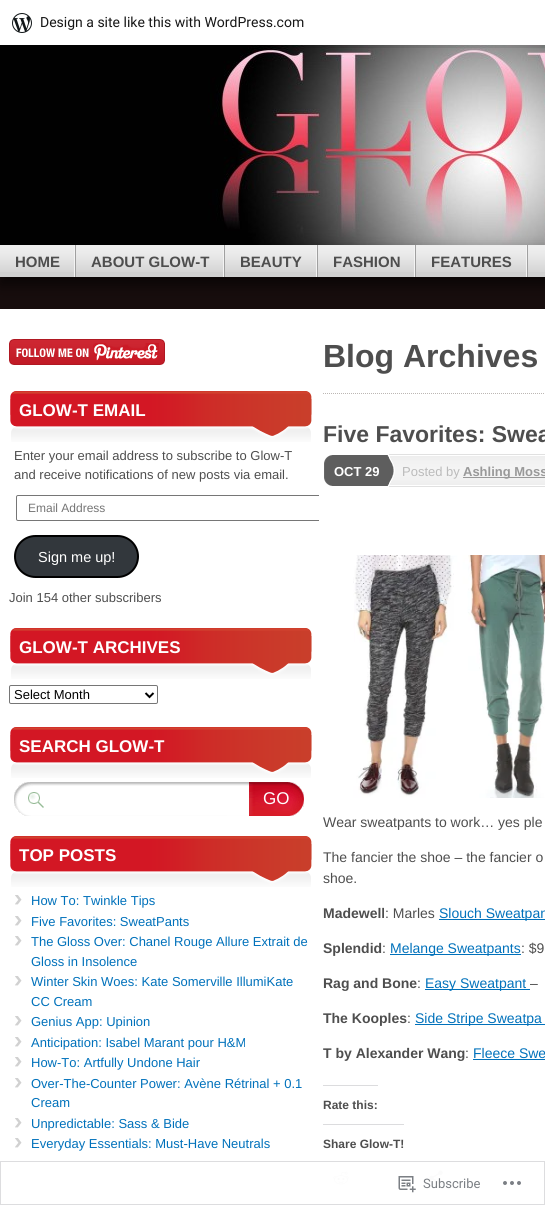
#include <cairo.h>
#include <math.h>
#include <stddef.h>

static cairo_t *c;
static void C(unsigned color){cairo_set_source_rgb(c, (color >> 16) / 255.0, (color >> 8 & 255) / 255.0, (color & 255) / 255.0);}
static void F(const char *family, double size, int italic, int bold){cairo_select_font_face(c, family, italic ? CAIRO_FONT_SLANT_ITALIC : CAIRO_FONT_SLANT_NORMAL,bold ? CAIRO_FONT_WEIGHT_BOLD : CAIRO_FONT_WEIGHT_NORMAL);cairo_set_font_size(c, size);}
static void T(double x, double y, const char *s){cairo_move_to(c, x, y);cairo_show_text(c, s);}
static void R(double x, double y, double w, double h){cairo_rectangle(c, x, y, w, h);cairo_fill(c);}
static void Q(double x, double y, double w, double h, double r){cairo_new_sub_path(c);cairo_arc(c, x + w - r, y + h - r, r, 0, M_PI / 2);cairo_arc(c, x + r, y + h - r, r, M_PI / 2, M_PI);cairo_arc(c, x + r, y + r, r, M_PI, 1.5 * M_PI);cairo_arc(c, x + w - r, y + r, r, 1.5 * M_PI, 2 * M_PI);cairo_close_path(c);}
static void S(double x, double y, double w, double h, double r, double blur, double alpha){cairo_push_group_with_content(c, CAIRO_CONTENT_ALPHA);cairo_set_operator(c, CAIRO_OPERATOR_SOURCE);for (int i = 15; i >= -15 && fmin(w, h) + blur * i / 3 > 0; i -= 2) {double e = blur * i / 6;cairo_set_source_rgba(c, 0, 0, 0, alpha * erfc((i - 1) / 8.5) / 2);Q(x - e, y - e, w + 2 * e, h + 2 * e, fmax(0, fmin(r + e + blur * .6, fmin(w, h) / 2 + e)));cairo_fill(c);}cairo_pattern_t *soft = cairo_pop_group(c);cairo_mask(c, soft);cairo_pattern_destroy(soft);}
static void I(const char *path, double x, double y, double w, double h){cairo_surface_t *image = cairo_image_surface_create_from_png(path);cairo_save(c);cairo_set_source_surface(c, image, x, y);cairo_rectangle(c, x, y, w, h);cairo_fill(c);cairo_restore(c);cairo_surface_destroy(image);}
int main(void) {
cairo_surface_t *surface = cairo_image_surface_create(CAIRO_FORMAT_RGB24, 545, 1205);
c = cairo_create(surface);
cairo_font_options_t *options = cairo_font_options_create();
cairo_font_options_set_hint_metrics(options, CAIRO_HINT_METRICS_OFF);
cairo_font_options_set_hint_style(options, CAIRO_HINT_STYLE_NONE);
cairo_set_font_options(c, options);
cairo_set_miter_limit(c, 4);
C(0x170d0d);
cairo_paint(c);
I("2.png",0,45,545,200);
cairo_set_source_rgba(c,0,0,0,0.08);
cairo_new_path(c);
cairo_move_to(c,1,45);
cairo_line_to(c,1,48);
cairo_line_to(c,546,48);
cairo_line_to(c,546,3);
cairo_line_to(c,545,3);
cairo_line_to(c,545,45);
cairo_close_path(c);
cairo_fill(c);
C(0xffffff);
R(0,0,545,45);
I("1.png",12,13,20,20);
F("Roboto",14,0,0);
C(0x171717);
T(40,27,"Design a site like this with WordPress.com");
C(0x000000);
S(0,253,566,32,0,7,.6);
C(0xd0d0d0);
R(0,272,545,5);
I("3.png",0,245,545,27);
I("4.png",74,245,2,32);
F("Liberation Sans",15,0,1);
C(0x4e4e4e);
T(15,267,"HOME");
I("4.png",223,245,2,32);
T(91,267,"ABOUT GLOW-T");
I("4.png",316,245,2,32);
T(240,267,"BEAUTY");
I("4.png",414,245,2,32);
T(333,267,"FASHION");
I("4.png",526,245,2,32);
T(431,267,"FEATURES");
C(0xffffff);
R(0,309,545,852);
R(1,1162,543,42);
I("5.png",9,339,156,26);
I("6.png",10,391,302,8);
I("7.png",10,399,302,43);
F("Liberation Sans",17,0,1);
T(19,416,"GLOW-T EMAIL");
F("Liberation Sans",13,0,0);
C(0x4e4e4e);
T(14,460,"Enter your email address to subscribe to Glow-T");
T(14,479,"and receive notifications of new posts via email.");
cairo_save(c);
cairo_rectangle(c,9,324,310,846);
cairo_clip(c);
Q(16.5,495.5,306,25,1.5);
C(0x767676);
cairo_set_line_width(c,1);
cairo_stroke(c);
cairo_restore(c);
F("Liberation Sans",12,0,0);
C(0x757575);
T(28,512,"Email Address");
C(0x32373c);
Q(15,536,123,41,20.5);
cairo_fill_preserve(c);
C(0x000000);
cairo_stroke(c);
F("Liberation Sans",14.5,0,0);
C(0xffffff);
T(38,562,"Sign me up!");
F("Liberation Sans",13,0,0);
C(0x4e4e4e);
T(9,602,"Join 154 other subscribers");
I("6.png",10,628,302,8);
I("7.png",10,636,302,43);
F("Liberation Sans",17,0,1);
C(0xffffff);
T(19,653,"GLOW-T ARCHIVES");
Q(9.5,685.5,148,18,1.5);
C(0x767676);
cairo_set_line_width(c,1);
cairo_stroke(c);
cairo_new_path(c);
cairo_move_to(c,145.5,693);
cairo_line_to(c,149.5,697);
cairo_line_to(c,153.5,693);
C(0x000000);
cairo_set_line_width(c,2);
cairo_stroke(c);
F("Liberation Sans",13,0,0);
T(14,699,"Select Month");
I("6.png",10,727,302,8);
I("7.png",10,735,302,43);
F("Liberation Sans",17,0,1);
C(0xffffff);
T(19,752,"SEARCH GLOW-T");
I("8.png",14,782,235,34);
I("9.png",249,782,55,34);
F("Liberation Sans",17,0,0);
T(263,804,"GO");
I("6.png",10,836,302,8);
I("7.png",10,844,302,43);
F("Liberation Sans",17,0,1);
T(19,861,"TOP POSTS");
I("10.png",15,895,7,10);
F("Liberation Sans",13,0,0);
C(0x0071bb);
T(31,905,"How To: Twinkle Tips");
I("10.png",15,916,7,10);
T(31,926,"Five Favorites: SweatPants");
I("10.png",15,936,7,10);
T(31,946,"The Gloss Over: Chanel Rouge Allure Extrait de");
T(31,966,"Gloss in Insolence");
I("10.png",15,976,7,10);
T(31,986,"Winter Skin Woes: Kate Somerville IllumiKate");
T(31,1006,"CC Cream");
I("10.png",15,1016,7,10);
T(31,1026,"Genius App: Upinion");
I("10.png",15,1037,7,10);
T(31,1047,"Anticipation: Isabel Marant pour H&M");
I("10.png",15,1057,7,10);
T(31,1067,"How-To: Artfully Undone Hair");
I("10.png",15,1078,7,10);
T(31,1088,"Over-The-Counter Power: Avène Rétrinal + 0.1");
T(31,1107,"Cream");
I("10.png",15,1118,7,10);
T(31,1128,"Unpredictable: Sass & Bide");
I("10.png",15,1138,7,10);
T(31,1148,"Everyday Essentials: Must-Have Neutrals");
I("11.png",323,393,221,1);
F("Liberation Sans",32,0,1);
C(0x4e4e4e);
T(323,367,"Blog Archives");
F("Liberation Sans",23,0,1);
T(323,442,"Five Favorites: Swea");
I("12.png",324,455,11,31);
I("13.png",335,454,61,33);
F("Liberation Sans",13,0,1);
C(0xffffff);
T(334,476,"OCT 29");
I("14.png",396,454,149,33);
F("Liberation Sans",13,0,0);
C(0xbbbbbb);
T(402,476,"Posted by");
C(0x999999);
R(463,477,82,1);
F("Liberation Sans",13,0,1);
T(463,476,"Ashling Moss");
I("15.png",353,555,192,243);
F("Liberation Sans",14,0,0);
C(0x4e4e4e);
T(323,827,"Wear sweatpants to work… yes ple");
T(323,862,"The fancier the shoe – the fancier o");
T(323,883,"shoe.");
F("Liberation Sans",14,0,1);
T(323,918,"Madewell");
F("Liberation Sans",14,0,0);
T(385,918,": Marles");
C(0x0071bb);
R(439,919,106,1);
T(439,918,"Slouch Sweatpan");
F("Liberation Sans",14,0,1);
C(0x4e4e4e);
T(323,953,"Splendid");
F("Liberation Sans",14,0,0);
T(382,953,":");
C(0x0071bb);
R(390,954,131,1);
T(390,953,"Melange Sweatpants");
C(0x4e4e4e);
T(521,953,": $9");
F("Liberation Sans",14,0,1);
T(323,988,"Rag and Bone");
F("Liberation Sans",14,0,0);
T(417,988,":");
C(0x0071bb);
R(425,989,105,1);
T(425,988,"Easy Sweatpant");
C(0x4e4e4e);
T(530,988,"–");
F("Liberation Sans",14,0,1);
T(323,1023,"The Kooples");
F("Liberation Sans",14,0,0);
T(407,1023,":");
C(0x0071bb);
R(415,1024,130,1);
T(415,1023,"Side Stripe Sweatpa");
F("Liberation Sans",14,0,1);
C(0x4e4e4e);
T(323,1058,"T by Alexander Wang");
F("Liberation Sans",14,0,0);
T(465,1058,":");
C(0x0071bb);
T(473,1058,"Fleece Swe");
R(473,1059,72,1);
C(0xdcdcde);
R(323,1085,55,1);
F("Liberation Sans",12,0,1);
C(0x4e4e4e);
T(323,1109,"Rate this:");
C(0xdcdcde);
R(323,1124,81,1);
C(0x4e4e4e);
T(323,1148,"Share Glow-T!");
I("16.png",333,1171,16,14);
I("17.png",429,1170,14,16);
cairo_rectangle(c,.5,1161.5,544,43);
C(0xdddddf);
cairo_set_line_width(c,1);
cairo_stroke(c);
I("18.png",398,1176,18,17);
F("Roboto",13,0,0);
C(0x7b7f84);
T(423,1188,"Subscribe");
I("19.png",503,1181,18,4);
cairo_surface_write_to_png(surface, "o.png");
cairo_font_options_destroy(options);
cairo_destroy(c);
cairo_surface_destroy(surface);
return 0;
}
